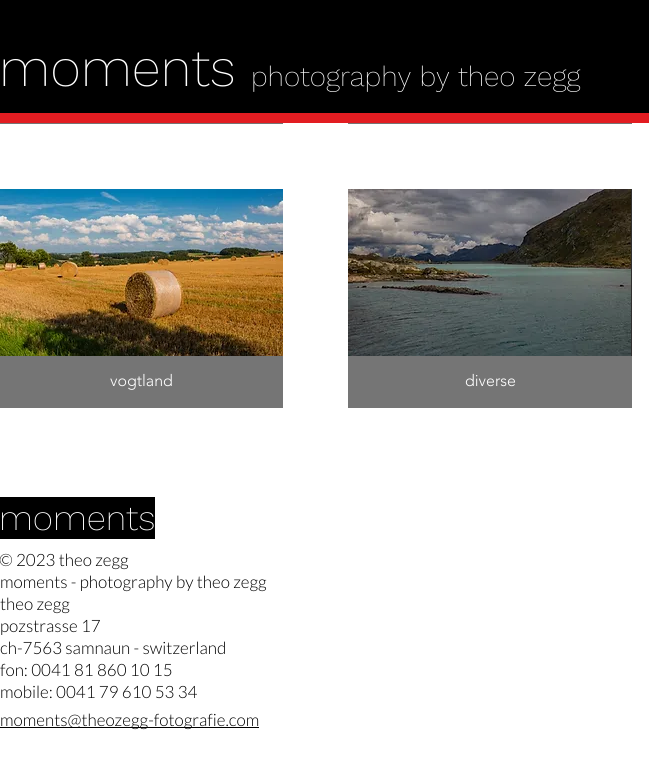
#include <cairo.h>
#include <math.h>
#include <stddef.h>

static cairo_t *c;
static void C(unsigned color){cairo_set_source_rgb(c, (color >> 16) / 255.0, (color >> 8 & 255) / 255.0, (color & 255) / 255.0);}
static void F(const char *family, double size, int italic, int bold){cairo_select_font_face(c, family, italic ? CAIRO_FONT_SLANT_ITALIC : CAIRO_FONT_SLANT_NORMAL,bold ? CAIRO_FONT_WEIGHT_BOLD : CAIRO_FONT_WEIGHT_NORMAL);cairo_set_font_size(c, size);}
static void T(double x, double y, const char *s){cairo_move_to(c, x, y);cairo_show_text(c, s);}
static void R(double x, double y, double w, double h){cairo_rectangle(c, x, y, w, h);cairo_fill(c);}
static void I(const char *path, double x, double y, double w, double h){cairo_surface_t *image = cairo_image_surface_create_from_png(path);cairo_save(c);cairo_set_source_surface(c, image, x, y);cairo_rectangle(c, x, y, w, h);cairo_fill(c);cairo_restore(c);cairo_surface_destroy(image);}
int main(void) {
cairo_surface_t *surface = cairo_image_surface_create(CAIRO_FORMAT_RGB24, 649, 776);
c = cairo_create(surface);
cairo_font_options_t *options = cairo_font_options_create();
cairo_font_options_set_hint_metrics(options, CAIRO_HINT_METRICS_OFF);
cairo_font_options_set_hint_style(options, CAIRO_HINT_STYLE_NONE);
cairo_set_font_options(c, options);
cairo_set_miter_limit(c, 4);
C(0xffffff);
cairo_paint(c);
C(0x000000);
R(0,0,649,113);
F("Work Sans ExtraLight",53,0,0);
C(0xffffff);
T(-1,86,"moments");
F("Work Sans ExtraLight",28,0,0);
T(251,86,"photography by theo zegg");
C(0xe21c21);
R(0,113,649,10);
C(0x757575);
R(0,123,283,1);
R(348,123,284,1);
I("1.png",0,189,283,167);
R(0,356,283,52);
F("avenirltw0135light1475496 Light",16,0,0);
C(0xffffff);
T(110,386,"vogtland");
C(0x2f2e2e);
R(631,189,1,167);
I("2.png",348,189,283,167);
C(0x757575);
R(348,356,284,52);
C(0xffffff);
T(465,386,"diverse");
C(0x000000);
R(0,497,155,42);
F("Work Sans ExtraLight",35,0,0);
C(0xffffff);
T(-1,530,"moments");
F("Lato Light",17,0,0);
C(0x000000);
T(-1,566,"© 2023 theo zegg");
T(0,588,"moments - photography by theo zegg");
T(0,610,"theo zegg");
T(0,632,"pozstrasse 17");
T(0,654,"ch-7563 samnaun - switzerland");
T(0,676,"fon: 0041 81 860 10 15");
T(0,698,"mobile: 0041 79 610 53 34");
R(0,727,259,1);
T(0,726,"moments@theozegg-fotografie.com");
cairo_surface_write_to_png(surface, "o.png");
cairo_font_options_destroy(options);
cairo_destroy(c);
cairo_surface_destroy(surface);
return 0;
}
